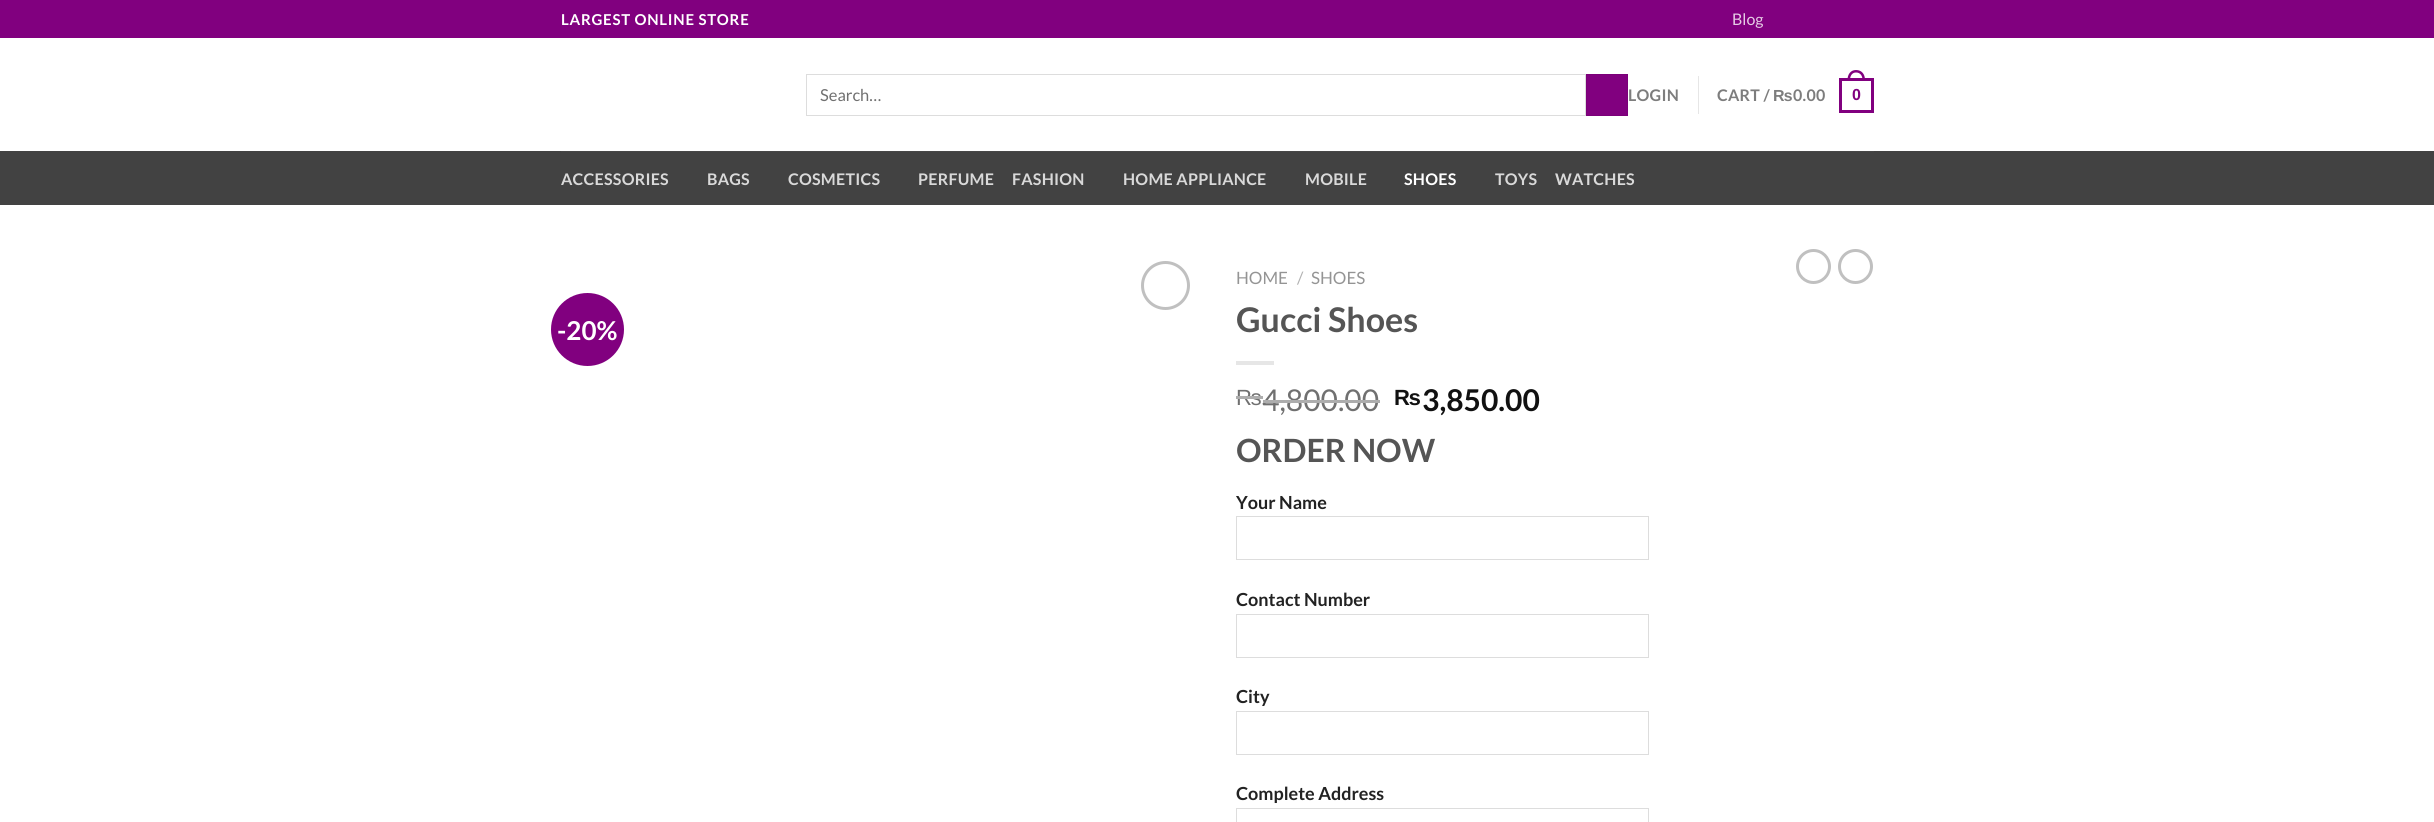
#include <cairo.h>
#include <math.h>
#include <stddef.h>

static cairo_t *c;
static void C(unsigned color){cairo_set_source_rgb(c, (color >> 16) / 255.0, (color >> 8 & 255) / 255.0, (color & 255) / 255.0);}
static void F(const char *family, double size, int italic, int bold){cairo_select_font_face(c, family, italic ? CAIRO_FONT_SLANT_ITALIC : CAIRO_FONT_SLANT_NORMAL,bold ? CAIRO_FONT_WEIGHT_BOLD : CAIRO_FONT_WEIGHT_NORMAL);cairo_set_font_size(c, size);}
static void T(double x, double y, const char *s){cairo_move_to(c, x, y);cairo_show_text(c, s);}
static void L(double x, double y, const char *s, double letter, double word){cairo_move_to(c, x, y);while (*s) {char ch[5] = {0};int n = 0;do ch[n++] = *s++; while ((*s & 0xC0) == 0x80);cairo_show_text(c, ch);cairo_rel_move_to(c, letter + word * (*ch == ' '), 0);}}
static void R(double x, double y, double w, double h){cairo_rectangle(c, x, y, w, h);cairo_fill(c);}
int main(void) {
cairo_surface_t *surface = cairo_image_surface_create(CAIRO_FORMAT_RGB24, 2434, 822);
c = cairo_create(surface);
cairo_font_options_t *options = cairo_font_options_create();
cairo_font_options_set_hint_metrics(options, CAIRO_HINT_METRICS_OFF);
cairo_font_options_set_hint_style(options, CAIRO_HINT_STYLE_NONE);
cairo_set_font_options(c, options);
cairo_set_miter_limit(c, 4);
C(0xffffff);
cairo_paint(c);
C(0x81007f);
R(0,0,2434,38);
F("Lato",15,0,1);
C(0xffffff);
L(561,25,"LARGEST ONLINE STORE",.75,0);
F("Lato",16,0,0);
C(0xe6cce5);
T(1732,25,"Blog");
cairo_rectangle(c,806.5,74.5,779,41);
C(0xdddddd);
cairo_set_line_width(c,1);
cairo_stroke(c);
F("Lato",16.5,0,0);
C(0x707070);
T(820,101,"Search…");
C(0x81007f);
cairo_rectangle(c,1586.5,74.5,41,41);
cairo_fill_preserve(c);
C(0x7b0079);
cairo_stroke(c);
F("Lato",16,0,1);
C(0x7d7d7d);
L(1628,101,"LOGIN",.25,0);
C(0xe6e6e6);
R(1698,76,1,38);
C(0x7d7d7d);
L(1717,101,"CART /",.25,0);
F("Liberation Sans",16,0,1);
L(1773,101,"₨",.25,0);
F("Lato",16,0,1);
L(1793,101,"0.00",.25,0);
cairo_rectangle(c,1840.5,79.5,32,32);
C(0x81007f);
cairo_set_line_width(c,3);
cairo_stroke(c);
cairo_set_fill_rule(c,CAIRO_FILL_RULE_EVEN_ODD);
cairo_new_path(c);
cairo_move_to(c,1856,70);
cairo_curve_to(c,1862,70,1865,74.5,1865,80);
cairo_line_to(c,1847.5,80);
cairo_curve_to(c,1847.5,74.5,1850.5,70,1856,70);
cairo_close_path(c);
cairo_move_to(c,1856,72.5);
cairo_curve_to(c,1860.5,72.5,1862.5,76,1862.5,80);
cairo_line_to(c,1850,80);
cairo_curve_to(c,1850,76,1852,72.5,1856,72.5);
cairo_close_path(c);
cairo_fill(c);
F("Liberation Sans",16,0,1);
L(1852,100,"0",.25,0);
C(0x424242);
R(0,151,2434,54);
C(0x474747);
R(561,151,1313,1);
F("Lato",16,0,1);
C(0xd9d9d9);
L(561,185,"ACCESSORIES",.25,0);
L(707,185,"BAGS",.25,0);
L(788,185,"COSMETICS",.25,0);
L(918,185,"PERFUME",.25,0);
L(1012,185,"FASHION",.25,0);
L(1123,185,"HOME APPLIANCE",.25,0);
L(1305,185,"MOBILE",.25,0);
C(0xffffff);
L(1404,185,"SHOES",.25,0);
C(0xd9d9d9);
L(1495,185,"TOYS",.25,0);
L(1555,185,"WATCHES",.25,0);
cairo_new_path(c);
cairo_arc(c,1813.5,266.5,16,0,2 * M_PI);
C(0xc0c0c0);
cairo_stroke(c);
cairo_arc(c,1855.5,266.5,16,0,2 * M_PI);
cairo_stroke(c);
cairo_arc(c,1165.5,285.5,23,0,2 * M_PI);
cairo_stroke(c);
C(0x81007f);
cairo_arc(c,587.5,329.5,36.5,0,2 * M_PI);
cairo_fill(c);
F("Lato",26,0,1);
C(0xffffff);
T(557,340,"-20%");
F("Lato",17,0,0);
C(0x949494);
T(1236,284,"HOME");
C(0xb2b2b2);
T(1297,284,"/");
C(0x949494);
T(1311,284,"SHOES");
F("Lato",34,0,1);
C(0x555555);
T(1236,332,"Gucci Shoes");
C(0xe6e6e6);
R(1236,361,38,4);
F("Liberation Sans",22,0,0);
C(0x707070);
T(1236,405,"₨");
C(0xadadad);
R(1236,396,27,3);
F("Lato",30,0,0);
C(0x707070);
T(1262,411,"4,800.00");
C(0xadadad);
R(1263,400,117,3);
F("Liberation Sans",22,0,1);
C(0x111111);
T(1394,405,"₨");
F("Lato",30,0,1);
T(1422,411,"3,850.00");
F("Lato",32,0,1);
C(0x555555);
T(1236,462,"ORDER NOW");
F("Lato",18,0,1);
C(0x222222);
T(1236,509,"Your Name");
cairo_rectangle(c,1236.5,516.5,412,43);
C(0xdddddd);
cairo_set_line_width(c,1);
cairo_stroke(c);
C(0x222222);
T(1236,606,"Contact Number");
cairo_rectangle(c,1236.5,614.5,412,43);
C(0xdddddd);
cairo_stroke(c);
C(0x222222);
T(1236,703,"City");
cairo_rectangle(c,1236.5,711.5,412,43);
C(0xdddddd);
cairo_stroke(c);
C(0x222222);
T(1236,800,"Complete Address");
cairo_rectangle(c,1236.5,808.5,412,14);
C(0xdddddd);
cairo_stroke(c);
cairo_surface_write_to_png(surface, "o.png");
cairo_font_options_destroy(options);
cairo_destroy(c);
cairo_surface_destroy(surface);
return 0;
}
